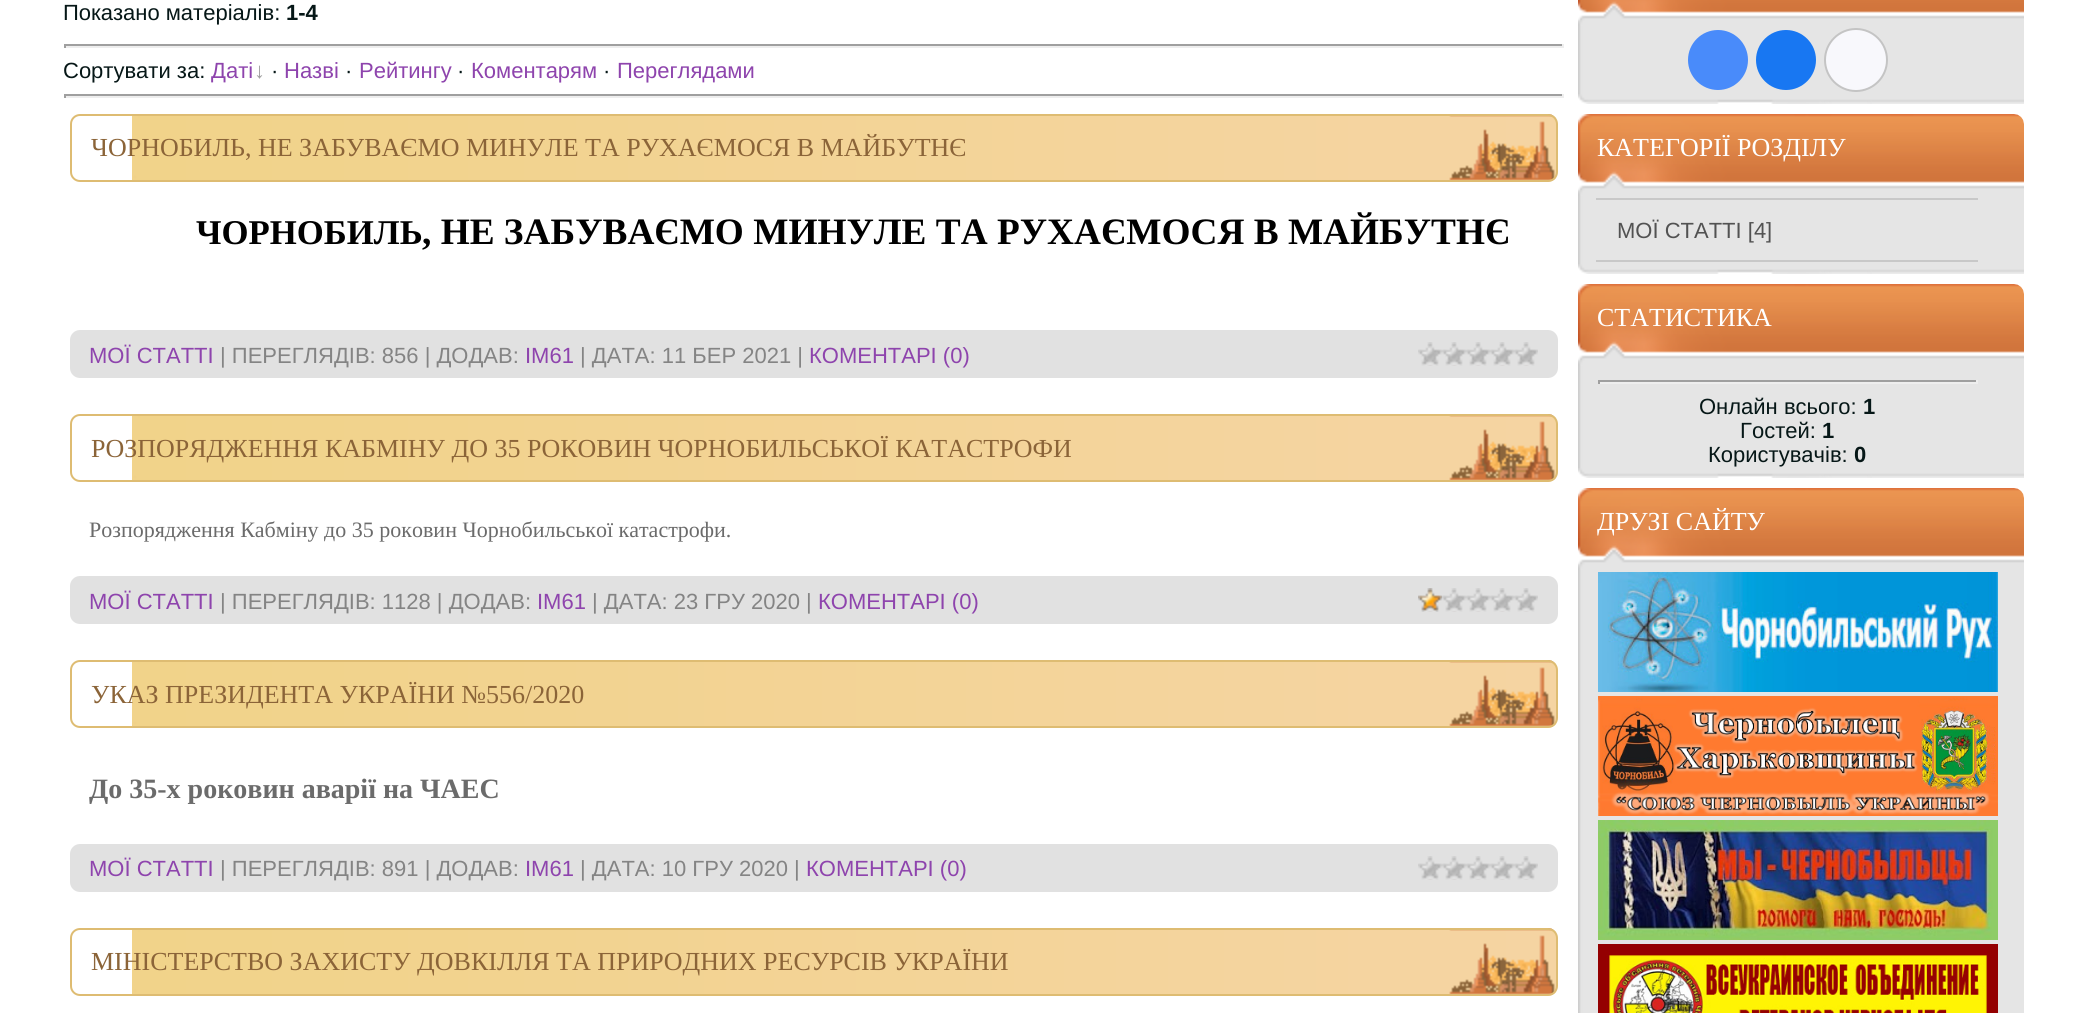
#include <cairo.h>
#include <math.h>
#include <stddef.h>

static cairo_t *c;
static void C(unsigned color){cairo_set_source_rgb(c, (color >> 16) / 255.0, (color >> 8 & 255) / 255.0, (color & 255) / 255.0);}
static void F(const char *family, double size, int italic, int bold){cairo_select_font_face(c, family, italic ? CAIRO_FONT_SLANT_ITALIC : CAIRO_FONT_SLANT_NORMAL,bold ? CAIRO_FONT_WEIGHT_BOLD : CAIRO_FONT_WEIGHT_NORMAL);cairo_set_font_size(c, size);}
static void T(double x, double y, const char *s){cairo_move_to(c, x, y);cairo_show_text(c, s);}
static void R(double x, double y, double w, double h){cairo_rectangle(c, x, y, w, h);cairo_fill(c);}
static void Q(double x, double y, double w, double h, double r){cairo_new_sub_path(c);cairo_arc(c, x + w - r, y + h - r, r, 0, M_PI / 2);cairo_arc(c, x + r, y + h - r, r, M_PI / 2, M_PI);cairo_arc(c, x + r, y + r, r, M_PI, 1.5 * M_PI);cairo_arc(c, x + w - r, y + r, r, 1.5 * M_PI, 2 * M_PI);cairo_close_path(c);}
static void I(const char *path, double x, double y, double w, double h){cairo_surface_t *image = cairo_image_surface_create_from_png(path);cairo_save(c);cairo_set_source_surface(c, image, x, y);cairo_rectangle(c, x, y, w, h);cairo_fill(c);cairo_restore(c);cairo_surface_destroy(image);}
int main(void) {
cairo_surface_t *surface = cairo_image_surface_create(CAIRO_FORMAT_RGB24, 2086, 1013);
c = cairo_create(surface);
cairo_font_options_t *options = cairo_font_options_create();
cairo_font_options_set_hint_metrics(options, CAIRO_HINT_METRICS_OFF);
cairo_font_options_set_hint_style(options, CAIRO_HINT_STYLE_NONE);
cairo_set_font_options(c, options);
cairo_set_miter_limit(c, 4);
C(0xffffff);
cairo_paint(c);
F("Liberation Sans",22,0,0);
C(0x061717);
T(63,20,"Показано матеріалів:");
F("Liberation Sans",22,0,1);
T(286,20,"1-4");
C(0x9f9f9f);
R(64,44,1500,2);
C(0xeeeeee);
R(1562,44,2,4);
R(64,46,1500,2);
C(0x9f9f9f);
R(64,44,2,4);
F("Liberation Sans",22,0,0);
C(0x061717);
T(63,78,"Сортувати за:");
C(0x8e44ad);
T(211,78,"Даті");
C(0xa0a0a0);
T(254,78,"↓");
C(0x061717);
T(271,78,"·");
C(0x8e44ad);
T(284,78,"Назві");
C(0x061717);
T(345,78,"·");
C(0x8e44ad);
T(359,78,"Рейтингу");
C(0x061717);
T(457,78,"·");
C(0x8e44ad);
T(471,78,"Коментарям");
C(0x061717);
T(603,78,"·");
C(0x8e44ad);
T(617,78,"Переглядами");
C(0x9f9f9f);
R(64,94,1500,2);
C(0xeeeeee);
R(1562,94,2,4);
R(64,96,1500,2);
C(0x9f9f9f);
R(64,94,2,4);
I("1.png",132,114,1424,68);
Q(71,115,1486,66,9);
C(0xdebc72);
cairo_stroke(c);
F("Liberation Serif",26,0,0);
C(0x8b6438);
T(91,156,"ЧОРНОБИЛЬ, НЕ ЗАБУВАЄМО МИНУЛЕ ТА РУХАЄМОСЯ В МАЙБУТНЄ");
F("Liberation Serif",34.75,0,1);
C(0x000000);
T(196,244,"ЧОРНОБИЛЬ");
F("Liberation Serif",37.3,0,1);
T(422,244,", НЕ ЗАБУВАЄМО МИНУЛЕ ТА РУХАЄМОСЯ В МАЙБУТНЄ");
C(0xe1e1e1);
Q(70,330,1488,48,10);
cairo_fill(c);
F("Liberation Sans",22,0,0);
C(0x8e44ad);
T(89,363,"МОЇ СТАТТІ");
C(0x848484);
T(220,363,"| ПЕРЕГЛЯДІВ: 856 | ДОДАВ:");
C(0x8e44ad);
T(525,363,"IM61");
C(0x848484);
T(580,363,"| ДАТА: 11 БЕР 2021 |");
C(0x8e44ad);
T(809,363,"КОМЕНТАРІ (0)");
I("2.png",1418,342,120,24);
I("1.png",132,414,1424,68);
Q(71,415,1486,66,9);
C(0xdebc72);
cairo_stroke(c);
F("Liberation Serif",26,0,0);
C(0x8b6438);
T(91,457,"РОЗПОРЯДЖЕННЯ КАБМІНУ ДО 35 РОКОВИН ЧОРНОБИЛЬСЬКОЇ КАТАСТРОФИ");
F("Liberation Serif",22,0,0);
C(0x6b6b6b);
T(89,537,"Розпорядження Кабміну до 35 роковин Чорнобильської катастрофи.");
C(0xe1e1e1);
Q(70,576,1488,48,10);
cairo_fill(c);
F("Liberation Sans",22,0,0);
C(0x8e44ad);
T(89,609,"МОЇ СТАТТІ");
C(0x848484);
T(220,609,"| ПЕРЕГЛЯДІВ: 1128 | ДОДАВ:");
C(0x8e44ad);
T(537,609,"IM61");
C(0x848484);
T(592,609,"| ДАТА: 23 ГРУ 2020 |");
C(0x8e44ad);
T(818,609,"КОМЕНТАРІ (0)");
I("2.png",1418,588,120,24);
I("3.png",1418,588,24,24);
I("1.png",132,660,1424,68);
Q(71,661,1486,66,9);
C(0xdebc72);
cairo_stroke(c);
F("Liberation Serif",26,0,0);
C(0x8b6438);
T(91,703,"УКАЗ ПРЕЗИДЕНТА УКРАЇНИ №556/2020");
F("Liberation Serif",28,0,1);
C(0x6b6b6b);
T(89,798,"До 35-х роковин аварії на ЧАЕС");
C(0xe1e1e1);
Q(70,844,1488,48,10);
cairo_fill(c);
F("Liberation Sans",22,0,0);
C(0x8e44ad);
T(89,876,"МОЇ СТАТТІ");
C(0x848484);
T(220,876,"| ПЕРЕГЛЯДІВ: 891 | ДОДАВ:");
C(0x8e44ad);
T(525,876,"IM61");
C(0x848484);
T(580,876,"| ДАТА: 10 ГРУ 2020 |");
C(0x8e44ad);
T(806,876,"КОМЕНТАРІ (0)");
I("2.png",1418,856,120,24);
I("1.png",132,928,1424,68);
Q(71,929,1486,66,9);
C(0xdebc72);
cairo_stroke(c);
F("Liberation Serif",26,0,0);
C(0x8b6438);
T(91,970,"МІНІСТЕРСТВО ЗАХИСТУ ДОВКІЛЛЯ ТА ПРИРОДНИХ РЕСУРСІВ УКРАЇНИ");
I("4.png",1578,0,446,26);
I("5.png",1578,26,446,68);
C(0x498bfa);
cairo_arc(c,1718,60,30,0,2 * M_PI);
cairo_fill(c);
C(0x1877f2);
cairo_arc(c,1786,60,30,0,2 * M_PI);
cairo_fill(c);
C(0xf8f8fc);
cairo_arc(c,1856,60,31,0,2 * M_PI);
cairo_fill_preserve(c);
C(0xc4c4c4);
cairo_stroke(c);
I("6.png",1578,94,446,10);
I("7.png",1578,114,446,18);
I("8.png",1578,132,446,32);
C(0xffffff);
T(1597,156,"КАТЕГОРІЇ РОЗДІЛУ");
I("9.png",1578,164,446,32);
I("5.png",1578,196,446,68);
C(0xc8c8c8);
R(1596,198,382,2);
R(1596,260,382,2);
F("Liberation Sans",22,0,0);
C(0x525252);
T(1617,238,"МОЇ СТАТТІ [4]");
I("6.png",1578,264,446,10);
I("7.png",1578,284,446,18);
I("8.png",1578,302,446,32);
F("Liberation Serif",26,0,0);
C(0xffffff);
T(1597,326,"СТАТИСТИКА");
I("9.png",1578,334,446,32);
I("10.png",1578,366,446,102);
C(0x9f9f9f);
R(1598,380,380,2);
C(0xeeeeee);
R(1976,380,2,4);
R(1598,382,380,2);
C(0x9f9f9f);
R(1598,380,2,4);
F("Liberation Sans",22,0,0);
C(0x061717);
T(1699,414,"Онлайн всього:");
F("Liberation Sans",22,0,1);
T(1863,414,"1");
F("Liberation Sans",22,0,0);
T(1740,438,"Гостей:");
F("Liberation Sans",22,0,1);
T(1822,438,"1");
F("Liberation Sans",22,0,0);
T(1708,462,"Користувачів:");
F("Liberation Sans",22,0,1);
T(1854,462,"0");
I("6.png",1578,468,446,10);
I("7.png",1578,488,446,18);
I("8.png",1578,506,446,32);
F("Liberation Serif",26,0,0);
C(0xffffff);
T(1597,530,"ДРУЗІ САЙТУ");
I("9.png",1578,538,446,32);
I("11.png",1578,570,446,443);
I("12.png",1598,572,400,120);
I("13.png",1598,696,400,120);
I("14.png",1598,820,400,120);
I("15.png",1598,944,400,69);
cairo_surface_write_to_png(surface, "o.png");
cairo_font_options_destroy(options);
cairo_destroy(c);
cairo_surface_destroy(surface);
return 0;
}
